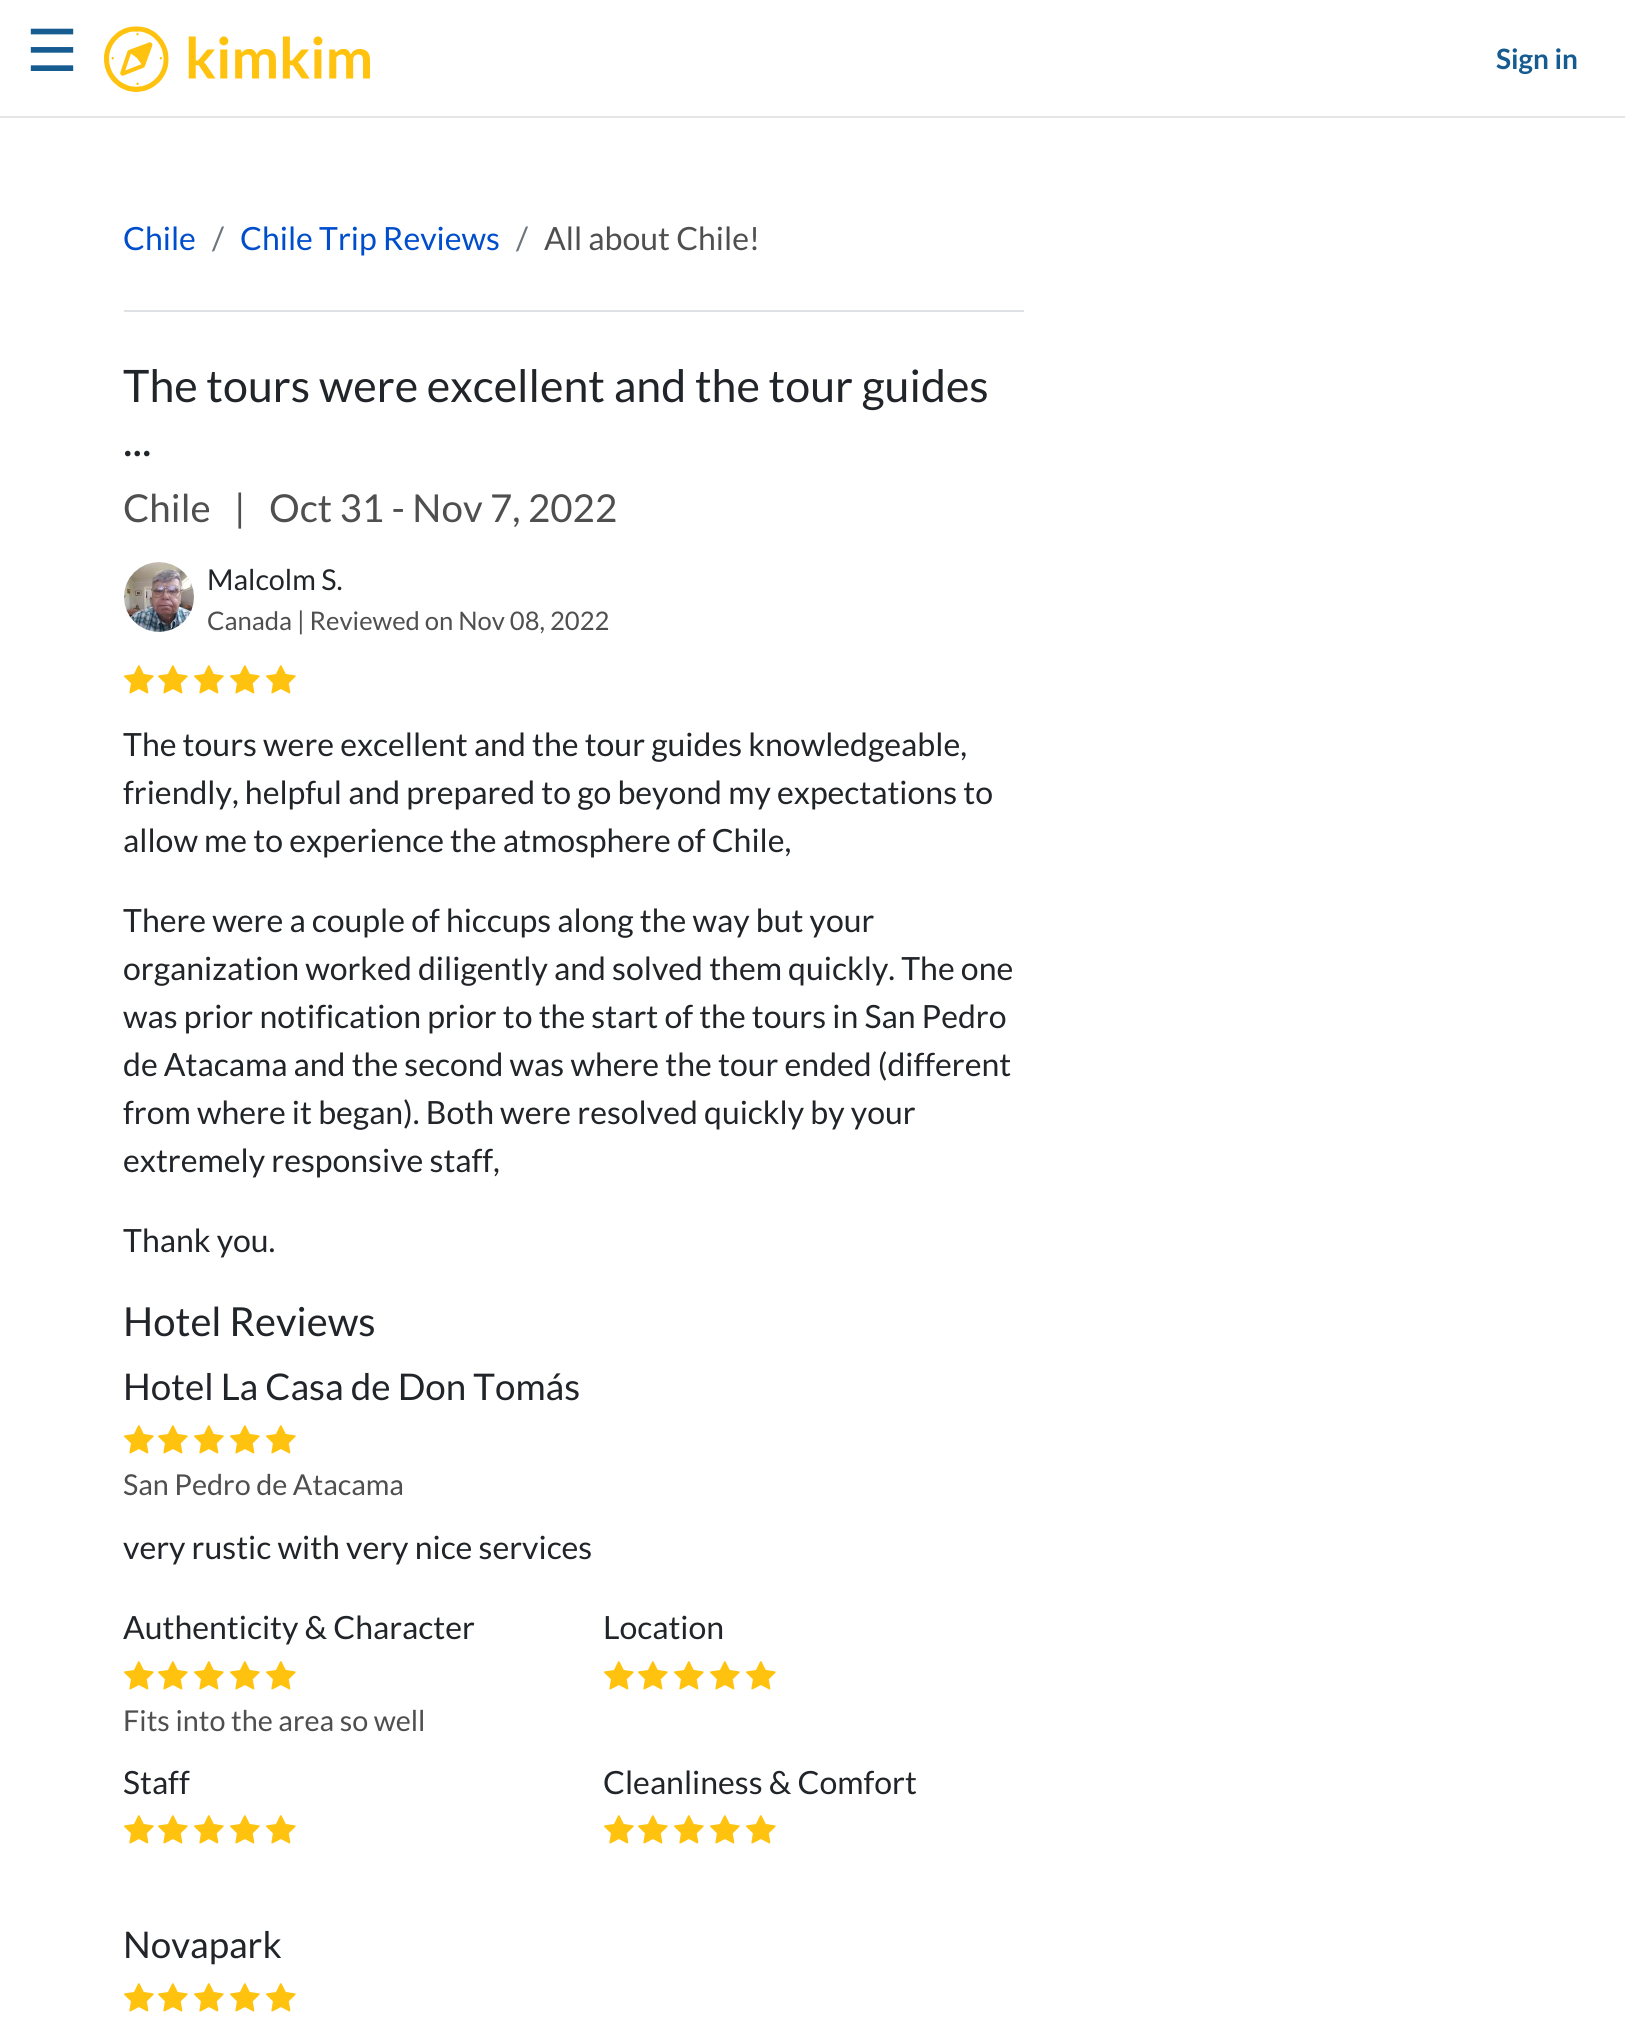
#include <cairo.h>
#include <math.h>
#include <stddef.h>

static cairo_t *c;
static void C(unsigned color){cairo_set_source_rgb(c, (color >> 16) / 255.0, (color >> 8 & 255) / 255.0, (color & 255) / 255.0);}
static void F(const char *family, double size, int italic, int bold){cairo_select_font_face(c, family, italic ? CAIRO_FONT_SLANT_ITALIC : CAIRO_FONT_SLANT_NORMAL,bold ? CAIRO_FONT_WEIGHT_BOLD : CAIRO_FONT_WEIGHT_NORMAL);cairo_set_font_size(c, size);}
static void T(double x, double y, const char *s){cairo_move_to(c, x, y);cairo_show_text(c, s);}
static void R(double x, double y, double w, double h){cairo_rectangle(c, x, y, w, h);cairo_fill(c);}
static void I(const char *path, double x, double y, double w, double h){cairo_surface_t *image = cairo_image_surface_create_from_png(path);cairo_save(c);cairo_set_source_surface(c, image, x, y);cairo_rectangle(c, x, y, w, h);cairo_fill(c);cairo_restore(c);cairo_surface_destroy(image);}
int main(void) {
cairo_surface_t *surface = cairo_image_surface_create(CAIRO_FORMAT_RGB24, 1625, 2017);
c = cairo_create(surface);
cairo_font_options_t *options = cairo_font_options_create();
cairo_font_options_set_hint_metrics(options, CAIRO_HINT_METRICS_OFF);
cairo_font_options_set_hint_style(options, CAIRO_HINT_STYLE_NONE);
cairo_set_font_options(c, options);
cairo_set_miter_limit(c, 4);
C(0xffffff);
cairo_paint(c);
C(0xe5e5e5);
R(0,116,1625,2);
F("DejaVu Sans",58,0,0);
C(0x165c91);
T(26,71,"☰");
I("1.png",104,26,266,66);
F("Lato",28,0,1);
T(1496,69,"Sign in");
F("Lato",32,0,0);
C(0x004ecc);
T(123,250,"Chile");
C(0x6c757d);
T(212,250,"/");
C(0x004ecc);
T(240,250,"Chile Trip Reviews");
C(0x6c757d);
T(516,250,"/");
C(0x4f4f4f);
T(544,250,"All about Chile!");
C(0xdee2e6);
R(124,310,900,2);
F("Lato",44.75,0,0);
C(0x212529);
T(123,402,"The tours were excellent and the tour guides");
T(123,456,"...");
F("Lato",38.5,0,0);
C(0x4f4f4f);
T(123,522,"Chile");
T(234,522,"|");
T(269,522,"Oct 31 - Nov 7, 2022");
I("2.png",124,562,70,70);
F("Lato",28.75,0,0);
C(0x212529);
T(207,590,"Malcolm S.");
F("Lato",25.6,0,0);
C(0x4f4f4f);
T(207,630,"Canada | Reviewed on Nov 08, 2022");
I("3.png",124,665,30,29);
I("3.png",158,665,30,29);
I("3.png",194,665,30,29);
I("3.png",230,665,30,29);
I("3.png",266,665,30,29);
F("Lato",32,0,0);
C(0x212529);
T(123,756,"The tours were excellent and the tour guides knowledgeable,");
T(123,804,"friendly, helpful and prepared to go beyond my expectations to");
T(123,852,"allow me to experience the atmosphere of Chile,");
T(123,932,"There were a couple of hiccups along the way but your");
T(123,980,"organization worked diligently and solved them quickly. The one");
T(123,1028,"was prior notification prior to the start of the tours in San Pedro");
T(123,1076,"de Atacama and the second was where the tour ended (different");
T(123,1124,"from where it began). Both were resolved quickly by your");
T(123,1172,"extremely responsive staff,");
T(123,1252,"Thank you.");
F("Lato",40,0,0);
T(123,1336,"Hotel Reviews");
F("Lato",36.75,0,0);
T(123,1400,"Hotel La Casa de Don Tomás");
I("3.png",124,1425,30,29);
I("3.png",158,1425,30,29);
I("3.png",194,1425,30,29);
I("3.png",230,1425,30,29);
I("3.png",266,1425,30,29);
F("Lato",28.75,0,0);
C(0x4f4f4f);
T(123,1495,"San Pedro de Atacama");
F("Lato",32,0,0);
C(0x212529);
T(123,1559,"very rustic with very nice services");
T(123,1639,"Authenticity & Character");
I("3.png",124,1661,30,29);
I("3.png",158,1661,30,29);
I("3.png",194,1661,30,29);
I("3.png",230,1661,30,29);
I("3.png",266,1661,30,29);
F("Lato",28.75,0,0);
C(0x4f4f4f);
T(123,1731,"Fits into the area so well");
F("Lato",32,0,0);
C(0x212529);
T(603,1639,"Location");
I("3.png",604,1661,30,29);
I("3.png",638,1661,30,29);
I("3.png",674,1661,30,29);
I("3.png",710,1661,30,29);
I("3.png",746,1661,30,29);
T(123,1794,"Staff");
I("3.png",124,1815,30,29);
I("3.png",158,1815,30,29);
I("3.png",194,1815,30,29);
I("3.png",230,1815,30,29);
I("3.png",266,1815,30,29);
T(603,1794,"Cleanliness & Comfort");
I("3.png",604,1815,30,29);
I("3.png",638,1815,30,29);
I("3.png",674,1815,30,29);
I("3.png",710,1815,30,29);
I("3.png",746,1815,30,29);
F("Lato",36.75,0,0);
T(123,1958,"Novapark");
I("3.png",124,1983,30,29);
I("3.png",158,1983,30,29);
I("3.png",194,1983,30,29);
I("3.png",230,1983,30,29);
I("3.png",266,1983,30,29);
cairo_surface_write_to_png(surface, "o.png");
cairo_font_options_destroy(options);
cairo_destroy(c);
cairo_surface_destroy(surface);
return 0;
}
